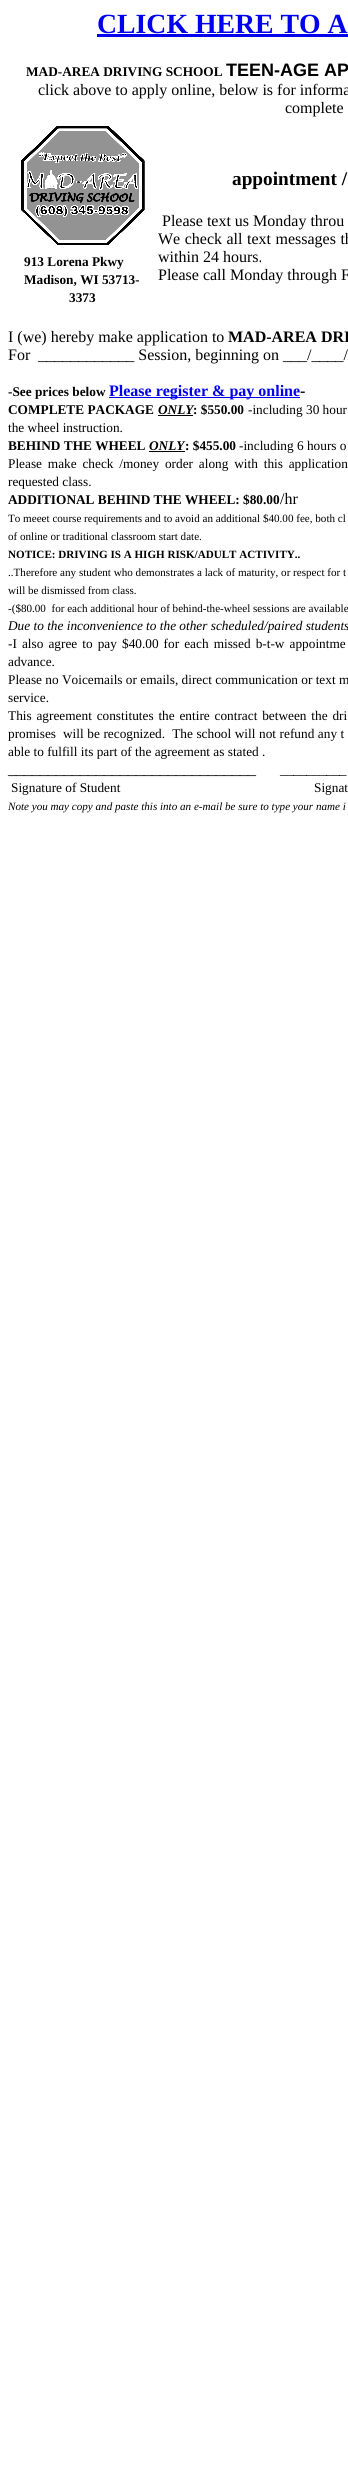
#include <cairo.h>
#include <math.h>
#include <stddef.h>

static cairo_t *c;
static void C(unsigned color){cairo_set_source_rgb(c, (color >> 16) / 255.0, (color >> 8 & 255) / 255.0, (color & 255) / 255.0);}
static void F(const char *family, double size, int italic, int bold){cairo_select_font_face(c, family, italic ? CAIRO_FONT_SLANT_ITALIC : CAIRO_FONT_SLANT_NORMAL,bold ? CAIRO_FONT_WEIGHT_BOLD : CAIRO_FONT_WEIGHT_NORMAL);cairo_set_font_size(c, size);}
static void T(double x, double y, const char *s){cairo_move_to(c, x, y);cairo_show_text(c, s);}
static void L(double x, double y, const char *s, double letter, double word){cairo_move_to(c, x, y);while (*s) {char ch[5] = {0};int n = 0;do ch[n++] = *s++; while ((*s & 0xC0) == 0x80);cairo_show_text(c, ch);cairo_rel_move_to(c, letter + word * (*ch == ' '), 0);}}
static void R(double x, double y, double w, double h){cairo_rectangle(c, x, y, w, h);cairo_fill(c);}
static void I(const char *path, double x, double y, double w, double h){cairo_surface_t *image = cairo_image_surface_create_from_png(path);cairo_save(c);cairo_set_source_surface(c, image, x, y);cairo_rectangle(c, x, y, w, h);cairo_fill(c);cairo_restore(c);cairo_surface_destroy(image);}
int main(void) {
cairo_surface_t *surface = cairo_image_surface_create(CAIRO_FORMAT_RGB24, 348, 2474);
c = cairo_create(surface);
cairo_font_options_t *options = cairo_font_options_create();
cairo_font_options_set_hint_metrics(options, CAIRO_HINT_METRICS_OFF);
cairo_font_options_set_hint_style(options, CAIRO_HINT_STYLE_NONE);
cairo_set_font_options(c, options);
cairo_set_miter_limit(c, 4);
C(0xffffff);
cairo_paint(c);
F("Liberation Serif",27.75,0,1);
C(0x0000ee);
T(97,33,"CLICK HERE TO A");
R(97,34,251,3);
F("Liberation Serif",13.3,0,1);
C(0x000000);
T(26,76,"MAD-AREA DRIVING SCHOOL");
F("Liberation Sans",18,0,1);
T(226,76,"TEEN-AGE AP");
F("Liberation Serif",16,0,0);
T(38,95,"click above to apply online, below is for informa");
T(285,113,"complete");
I("1.png",21,126,124,119);
F("Liberation Serif",13.3,0,1);
T(24,266,"913 Lorena Pkwy");
T(24,284,"Madison, WI 53713-");
T(69,302,"3373");
F("Liberation Serif",19.25,0,1);
T(232,185,"appointment /");
F("Liberation Serif",16,0,0);
T(162,226,"Please text us Monday throu");
L(158,244,"We check all text messages th",0,.5);
T(158,262,"within 24 hours.");
T(158,280,"Please call Monday through F");
T(8,342,"I (we) hereby make application to");
F("Liberation Serif",16,0,1);
T(228,342,"MAD-AREA DRI");
F("Liberation Serif",16,0,0);
T(8,360,"For  ____________ Session, beginning on ___/____/");
F("Liberation Serif",13.3,0,1);
T(8,396,"-See prices below");
C(0x0000ee);
R(109,397,191,1);
F("Liberation Serif",16,0,1);
T(109,396,"Please register & pay online");
C(0x000000);
T(300,396,"-");
F("Liberation Serif",13.3,0,1);
T(8,414,"COMPLETE PACKAGE");
F("Liberation Serif",13.3,1,1);
T(158,414,"ONLY");
R(158,415,35,1);
F("Liberation Serif",13.3,0,1);
T(193,414,": $550.00");
F("Liberation Serif",13.3,0,0);
T(248,414,"-including 30 hour");
T(8,432,"the wheel instruction.");
F("Liberation Serif",13.3,0,1);
T(8,450,"BEHIND THE WHEEL");
F("Liberation Serif",13.3,1,1);
T(149,450,"ONLY");
R(149,451,36,1);
F("Liberation Serif",13.3,0,1);
T(185,450,": $455.00");
F("Liberation Serif",13.3,0,0);
T(239,450,"-including 6 hours o");
L(8,468,"Please make check /money order along with this application",0,2.5);
T(8,486,"requested class.");
F("Liberation Serif",13.3,0,1);
T(8,504,"ADDITIONAL BEHIND THE WHEEL: $80.00");
F("Liberation Serif",16,0,0);
T(280,504,"/hr");
F("Liberation Serif",11.1,0,0);
T(8,522,"To meeet course requirements and to avoid an additional $40.00 fee, both cl");
T(8,540,"of online or traditional classroom start date.");
F("Liberation Serif",11.1,0,1);
T(8,558,"NOTICE: DRIVING IS A HIGH RISK/ADULT ACTIVITY..");
F("Liberation Serif",11.1,0,0);
T(8,576,"..Therefore any student who demonstrates a lack of maturity, or respect for t");
T(8,594,"will be dismissed from class.");
T(8,612,"-($80.00  for each additional hour of behind-the-wheel sessions are available");
F("Liberation Serif",13.3,1,0);
T(8,630,"Due to the inconvenience to the other scheduled/paired students");
F("Liberation Serif",13.3,0,0);
L(8,648,"-I also agree to pay $40.00 for each missed b-t-w appointme",0,1.75);
T(8,666,"advance.");
T(8,684,"Please no Voicemails or emails, direct communication or text m");
T(8,702,"service.");
L(8,720,"This agreement constitutes the entire contract between the dri",0,1.5);
T(8,738,"promises");
L(63,738,"will be recognized.  The school will not refund any t",0,.25);
T(8,756,"able to fulfill its part of the agreement as stated .");
F("Liberation Serif",16,0,0);
T(8,774,"_______________________________");
F("Liberation Serif",13.3,0,0);
T(280,774,"__________");
T(11,792,"Signature of Student");
T(314,792,"Signat");
F("Liberation Serif",11.1,1,0);
T(8,810,"Note you may copy and paste this into an e-mail be sure to type your name i");
cairo_surface_write_to_png(surface, "o.png");
cairo_font_options_destroy(options);
cairo_destroy(c);
cairo_surface_destroy(surface);
return 0;
}
